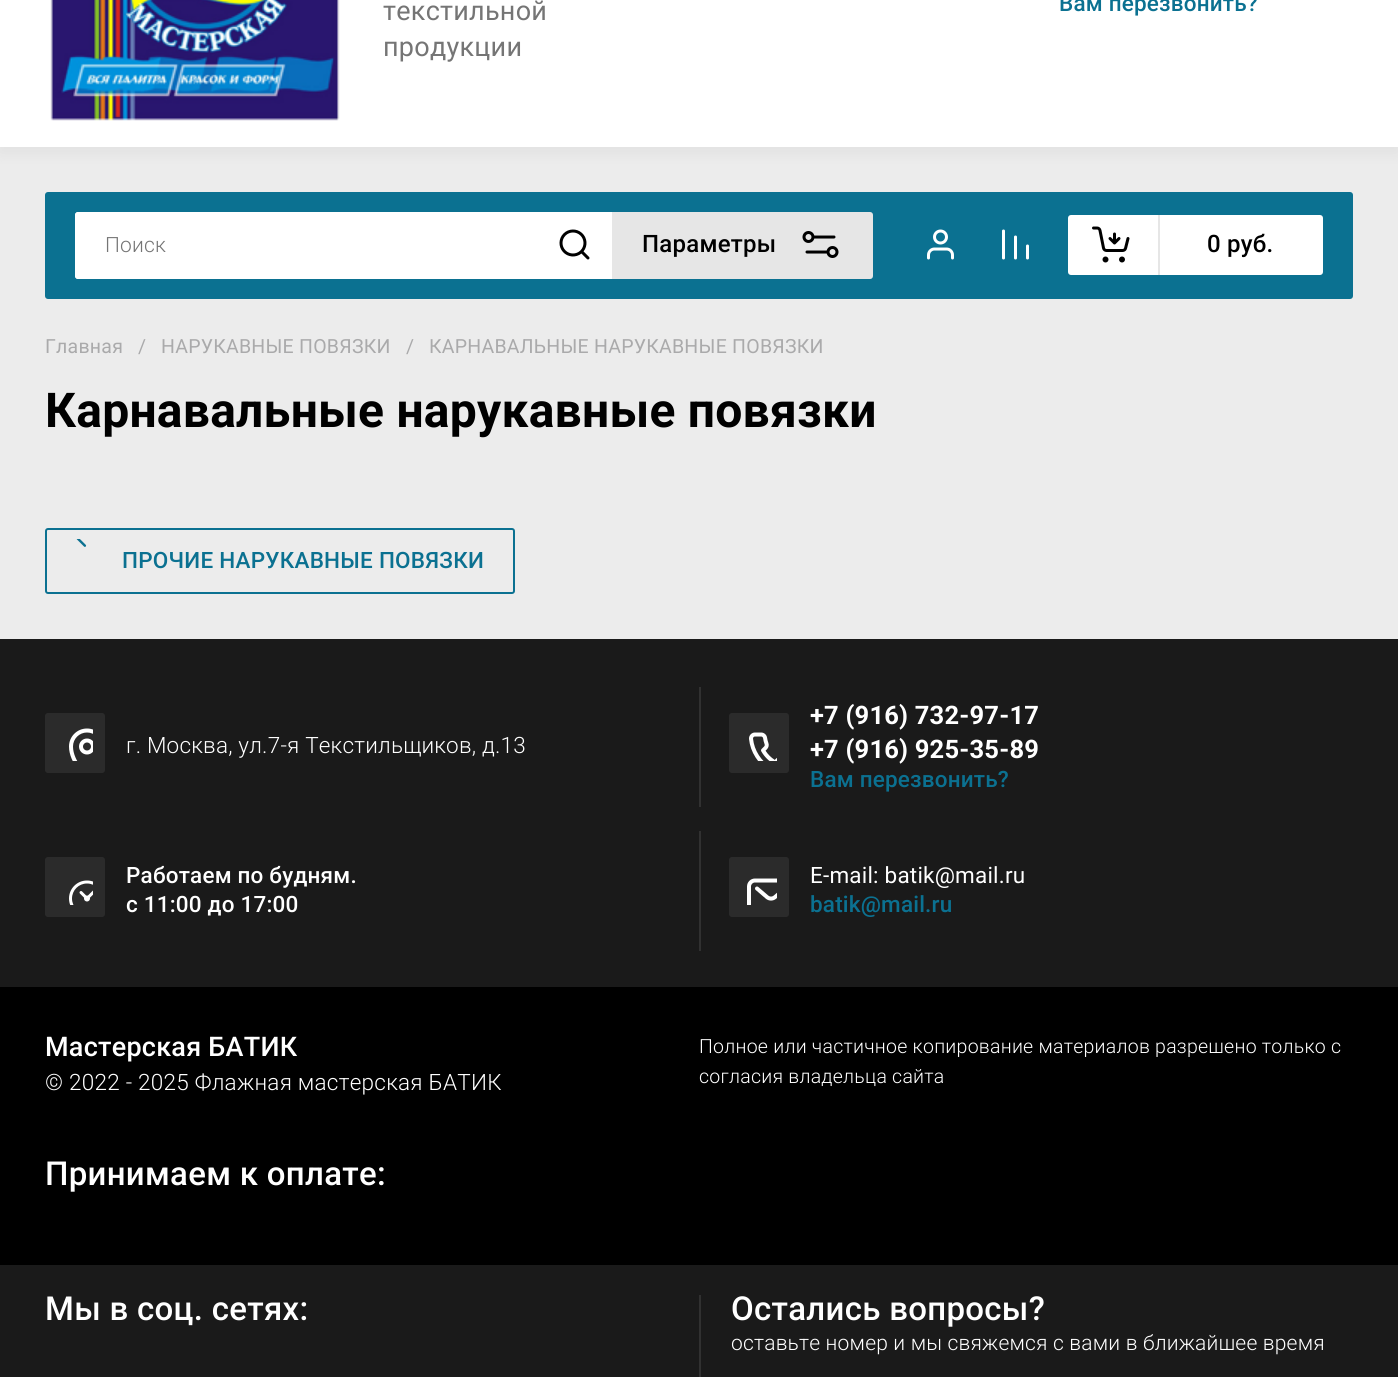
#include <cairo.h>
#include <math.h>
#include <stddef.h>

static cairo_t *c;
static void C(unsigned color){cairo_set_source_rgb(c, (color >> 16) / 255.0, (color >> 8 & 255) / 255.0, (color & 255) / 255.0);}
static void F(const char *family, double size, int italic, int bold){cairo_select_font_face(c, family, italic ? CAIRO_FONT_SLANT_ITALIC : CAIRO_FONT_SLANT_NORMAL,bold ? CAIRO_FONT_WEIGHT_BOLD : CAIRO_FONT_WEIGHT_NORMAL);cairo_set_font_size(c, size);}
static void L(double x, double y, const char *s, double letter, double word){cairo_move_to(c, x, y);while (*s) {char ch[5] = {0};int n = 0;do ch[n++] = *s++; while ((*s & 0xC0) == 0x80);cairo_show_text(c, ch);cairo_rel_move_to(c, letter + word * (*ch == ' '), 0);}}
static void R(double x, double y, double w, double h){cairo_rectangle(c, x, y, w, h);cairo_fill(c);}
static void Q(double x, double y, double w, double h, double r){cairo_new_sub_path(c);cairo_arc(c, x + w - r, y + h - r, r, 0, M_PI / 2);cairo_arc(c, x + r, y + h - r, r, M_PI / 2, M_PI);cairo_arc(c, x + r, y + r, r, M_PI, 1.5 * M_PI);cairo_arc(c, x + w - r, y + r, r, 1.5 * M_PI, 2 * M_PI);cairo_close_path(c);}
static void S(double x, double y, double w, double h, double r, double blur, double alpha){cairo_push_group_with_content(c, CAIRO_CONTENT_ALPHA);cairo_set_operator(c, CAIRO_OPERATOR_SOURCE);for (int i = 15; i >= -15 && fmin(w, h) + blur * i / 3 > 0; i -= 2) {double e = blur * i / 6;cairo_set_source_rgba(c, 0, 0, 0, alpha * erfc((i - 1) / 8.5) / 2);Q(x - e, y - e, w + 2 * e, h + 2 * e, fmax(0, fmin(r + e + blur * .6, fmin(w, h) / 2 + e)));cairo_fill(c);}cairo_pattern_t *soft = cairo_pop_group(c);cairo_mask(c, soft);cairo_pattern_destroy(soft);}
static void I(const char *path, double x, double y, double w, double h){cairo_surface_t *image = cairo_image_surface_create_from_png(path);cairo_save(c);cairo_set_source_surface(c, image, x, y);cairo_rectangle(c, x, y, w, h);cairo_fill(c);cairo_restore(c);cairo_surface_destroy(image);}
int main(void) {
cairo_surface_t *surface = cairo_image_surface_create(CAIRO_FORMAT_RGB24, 1398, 1377);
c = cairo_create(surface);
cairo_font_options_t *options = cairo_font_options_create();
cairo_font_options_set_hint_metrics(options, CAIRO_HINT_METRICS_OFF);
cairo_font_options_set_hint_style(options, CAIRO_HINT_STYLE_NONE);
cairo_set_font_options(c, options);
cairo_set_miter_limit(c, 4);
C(0xececec);
cairo_paint(c);
C(0x000000);
S(0,-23,1398,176,0,7.5,.05);
C(0xffffff);
R(0,0,1398,147);
I("1.png",50,0,290,121);
F("Roboto",27,0,0);
C(0x757575);
L(383,20,"текстильной",.25,0);
L(383,56,"продукции",.25,0);
F("Roboto Medium",22.5,0,0);
C(0x0b7191);
L(1059,11,"Вам перезвонить?",.2,0);
Q(45,192,1308,107,3);
cairo_fill(c);
C(0xffffff);
Q(75,212,798,67,3);
cairo_fill(c);
cairo_new_path(c);
cairo_move_to(c,78,212);
cairo_line_to(c,537,212);
cairo_line_to(c,537,279);
cairo_line_to(c,78,279);
cairo_curve_to(c,76.5,279,75,277.5,75,276);
cairo_line_to(c,75,215);
cairo_curve_to(c,75,213.5,76.5,212,78,212);
cairo_close_path(c);
cairo_fill(c);
F("Roboto Light",21,0,0);
C(0x757575);
L(105,252,"Поиск",.2,0);
I("2.png",559,229,31,31);
cairo_set_source_rgba(c,0,0,0,0.1);
cairo_new_path(c);
cairo_move_to(c,612,212);
cairo_line_to(c,870,212);
cairo_curve_to(c,871.5,212,873,213.5,873,215);
cairo_line_to(c,873,276);
cairo_curve_to(c,873,277.5,871.5,279,870,279);
cairo_line_to(c,612,279);
cairo_close_path(c);
cairo_fill(c);
F("Roboto Medium",24,0,0);
C(0x000000);
L(642,252,"Параметры",.25,0);
I("3.png",802,231,37,27);
I("4.png",927,229,27,31);
I("5.png",1002,229,27,31);
C(0xffffff);
Q(1068,215,255,60,3);
cairo_fill(c);
I("6.png",1092,226,38,37);
C(0xe6e6e6);
R(1158,215,2,60);
C(0x000000);
L(1207,252,"0 руб.",.25,0);
F("Roboto",19.5,0,0);
C(0xaaaaab);
L(45,353,"Главная",.25,0);
L(138,353,"/",.25,0);
L(161,353,"НАРУКАВНЫЕ ПОВЯЗКИ",.25,0);
L(406,353,"/",.25,0);
L(429,353,"КАРНАВАЛЬНЫЕ НАРУКАВНЫЕ ПОВЯЗКИ",.25,0);
F("Roboto",48,0,1);
C(0x000000);
L(45,427,"Карнавальные нарукавные повязки",.25,0);
Q(46,529,468,64,2);
C(0x0b7191);
cairo_stroke(c);
I("7.png",76,539,11,8);
F("Roboto Medium",22.5,0,0);
L(122,568,"ПРОЧИЕ НАРУКАВНЫЕ ПОВЯЗКИ",.25,0);
C(0x000000);
R(0,987,1398,278);
C(0x1a1a1a);
R(0,639,1398,348);
C(0x2b2b2b);
Q(45,713,60,60,3);
cairo_fill(c);
I("8.png",69,728,24,33);
F("Roboto Light",22.5,0,0);
C(0xffffff);
L(126,753,"г. Москва, ул.7-я Текстильщиков, д.13",.2,0);
C(0x313131);
R(699,687,2,120);
C(0x2b2b2b);
Q(729,713,60,60,3);
cairo_fill(c);
I("9.png",749,732,28,29);
F("Roboto",25.5,0,1);
C(0xffffff);
L(810,724,"+7 (916) 732-97-17",.2,0);
L(810,758,"+7 (916) 925-35-89",.2,0);
F("Roboto Medium",22.5,0,0);
C(0x0b7191);
L(810,787,"Вам перезвонить?",.2,0);
C(0x2b2b2b);
Q(45,857,60,60,3);
cairo_fill(c);
I("10.png",69,880,24,25);
C(0xffffff);
L(126,883,"Работаем по будням.",.2,0);
L(126,912,"с 11:00 до 17:00",.2,0);
C(0x313131);
R(699,831,2,120);
C(0x2b2b2b);
Q(729,857,60,60,3);
cairo_fill(c);
I("11.png",747,878,30,27);
F("Roboto",22.5,0,0);
C(0xffffff);
L(810,883,"Е-mail: batik@mail.ru",.2,0);
F("Roboto Medium",22.5,0,0);
C(0x0b7191);
L(810,912,"batik@mail.ru",.2,0);
F("Roboto Medium",27,0,0);
C(0xffffff);
L(45,1056,"Мастерская БАТИК",.25,0);
F("Roboto Light",22.5,0,0);
L(45,1090,"© 2022 - 2025 Флажная мастерская БАТИК",.25,0);
F("Roboto Light",19.5,0,0);
L(699,1053,"Полное или частичное копирование материалов разрешено только с",.25,0);
L(699,1083,"согласия владельца сайта",.25,0);
F("Roboto Medium",33,0,0);
L(45,1185,"Принимаем к оплате:",.3,0);
C(0x1a1a1a);
R(0,1265,1398,112);
C(0xffffff);
L(45,1320,"Мы в соц. сетях:",.3,0);
C(0x313131);
R(699,1295,2,82);
C(0xffffff);
L(731,1320,"Остались вопросы?",.3,0);
F("Roboto Light",21,0,0);
L(731,1350,"оставьте номер и мы свяжемся с вами в ближайшее время",.2,0);
cairo_surface_write_to_png(surface, "o.png");
cairo_font_options_destroy(options);
cairo_destroy(c);
cairo_surface_destroy(surface);
return 0;
}
